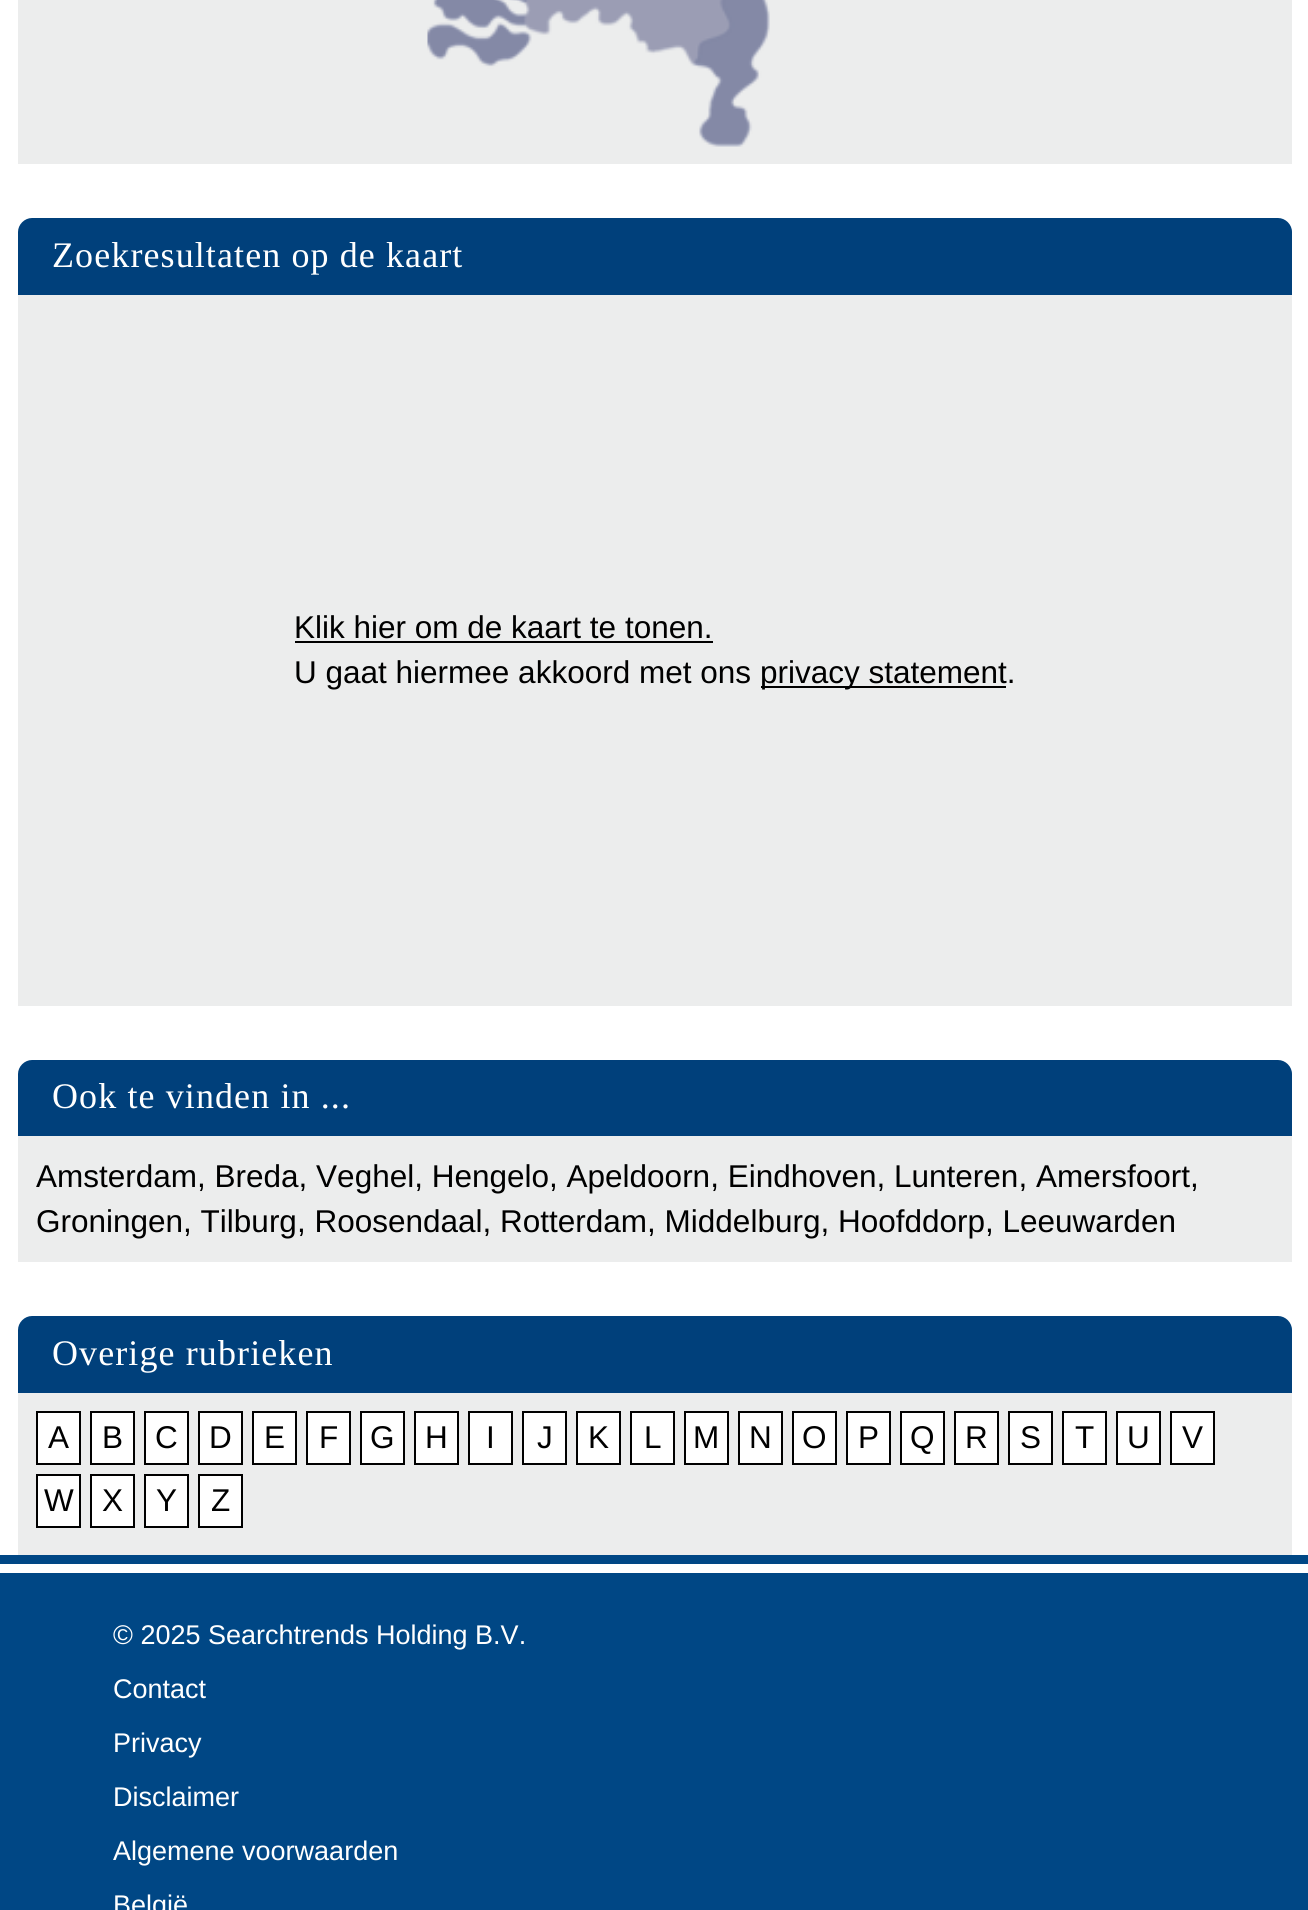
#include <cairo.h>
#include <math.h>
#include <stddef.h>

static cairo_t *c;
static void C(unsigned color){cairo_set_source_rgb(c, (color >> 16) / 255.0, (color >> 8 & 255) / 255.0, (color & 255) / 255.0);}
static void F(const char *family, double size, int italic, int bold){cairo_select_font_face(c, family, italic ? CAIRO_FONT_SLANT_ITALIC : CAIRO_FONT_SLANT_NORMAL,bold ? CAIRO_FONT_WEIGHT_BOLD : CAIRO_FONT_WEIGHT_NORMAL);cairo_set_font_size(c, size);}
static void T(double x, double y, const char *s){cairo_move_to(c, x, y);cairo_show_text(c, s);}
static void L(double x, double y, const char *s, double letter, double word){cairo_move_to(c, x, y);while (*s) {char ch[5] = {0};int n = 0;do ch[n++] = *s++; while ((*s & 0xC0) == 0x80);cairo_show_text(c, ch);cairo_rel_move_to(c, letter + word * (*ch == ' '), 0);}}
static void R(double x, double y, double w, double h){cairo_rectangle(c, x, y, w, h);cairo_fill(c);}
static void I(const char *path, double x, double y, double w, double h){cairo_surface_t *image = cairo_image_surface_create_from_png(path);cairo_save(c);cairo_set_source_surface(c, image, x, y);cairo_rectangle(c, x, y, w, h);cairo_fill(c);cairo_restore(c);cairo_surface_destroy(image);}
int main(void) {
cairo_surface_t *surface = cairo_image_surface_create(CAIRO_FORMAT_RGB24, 1308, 1910);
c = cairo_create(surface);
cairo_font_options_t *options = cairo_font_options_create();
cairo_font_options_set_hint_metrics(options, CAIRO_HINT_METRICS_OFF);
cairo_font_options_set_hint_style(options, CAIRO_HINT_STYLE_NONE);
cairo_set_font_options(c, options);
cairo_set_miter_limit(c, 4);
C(0xffffff);
cairo_paint(c);
C(0xeceded);
R(18,0,1274,164);
I("1.png",427,0,343,147);
C(0x00407b);
cairo_new_path(c);
cairo_move_to(c,32,218);
cairo_line_to(c,1278,218);
cairo_curve_to(c,1285.5,218,1292,224.5,1292,232);
cairo_line_to(c,1292,295);
cairo_line_to(c,18,295);
cairo_line_to(c,18,232);
cairo_curve_to(c,18,224.5,24.5,218,32,218);
cairo_close_path(c);
cairo_fill(c);
F("Liberation Serif",36,0,0);
C(0xffffff);
L(52,267,"Zoekresultaten op de kaart",1.1,0);
C(0xeceded);
R(18,295,1274,711);
F("Liberation Sans",31.5,0,0);
C(0x000000);
T(294,638,"Klik hier om de kaart te tonen.");
R(295,641,418,2);
T(294,683,"U gaat hiermee akkoord met ons");
R(761,686,245,2);
T(760,683,"privacy statement.");
C(0x00407b);
cairo_new_path(c);
cairo_move_to(c,32,1060);
cairo_line_to(c,1278,1060);
cairo_curve_to(c,1285.5,1060,1292,1066.5,1292,1074);
cairo_line_to(c,1292,1136);
cairo_line_to(c,18,1136);
cairo_line_to(c,18,1074);
cairo_curve_to(c,18,1066.5,24.5,1060,32,1060);
cairo_close_path(c);
cairo_fill(c);
F("Liberation Serif",36,0,0);
C(0xffffff);
L(52,1108,"Ook te vinden in ...",1.1,0);
C(0xeceded);
R(18,1136,1274,126);
F("Liberation Sans",31.5,0,0);
C(0x000000);
T(36,1187,"Amsterdam, Breda, Veghel, Hengelo, Apeldoorn, Eindhoven, Lunteren, Amersfoort,");
T(36,1232,"Groningen, Tilburg, Roosendaal, Rotterdam, Middelburg, Hoofddorp, Leeuwarden");
C(0x00407b);
cairo_new_path(c);
cairo_move_to(c,32,1316);
cairo_line_to(c,1278,1316);
cairo_curve_to(c,1285.5,1316,1292,1322.5,1292,1330);
cairo_line_to(c,1292,1393);
cairo_line_to(c,18,1393);
cairo_line_to(c,18,1330);
cairo_curve_to(c,18,1322.5,24.5,1316,32,1316);
cairo_close_path(c);
cairo_fill(c);
F("Liberation Serif",36,0,0);
C(0xffffff);
L(52,1365,"Overige rubrieken",1.1,0);
C(0xeceded);
R(18,1393,1274,162);
C(0xffffff);
cairo_rectangle(c,37,1412,43,52);
cairo_fill_preserve(c);
C(0x000000);
cairo_stroke(c);
F("Liberation Sans",31.5,0,0);
T(48,1448,"A");
C(0xffffff);
cairo_rectangle(c,91,1412,43,52);
cairo_fill_preserve(c);
C(0x000000);
cairo_stroke(c);
T(102,1448,"B");
C(0xffffff);
cairo_rectangle(c,145,1412,43,52);
cairo_fill_preserve(c);
C(0x000000);
cairo_stroke(c);
T(155,1448,"C");
C(0xffffff);
cairo_rectangle(c,199,1412,43,52);
cairo_fill_preserve(c);
C(0x000000);
cairo_stroke(c);
T(209,1448,"D");
C(0xffffff);
cairo_rectangle(c,253,1412,43,52);
cairo_fill_preserve(c);
C(0x000000);
cairo_stroke(c);
T(264,1448,"E");
C(0xffffff);
cairo_rectangle(c,307,1412,43,52);
cairo_fill_preserve(c);
C(0x000000);
cairo_stroke(c);
T(319,1448,"F");
C(0xffffff);
cairo_rectangle(c,361,1412,43,52);
cairo_fill_preserve(c);
C(0x000000);
cairo_stroke(c);
T(370,1448,"G");
C(0xffffff);
cairo_rectangle(c,415,1412,43,52);
cairo_fill_preserve(c);
C(0x000000);
cairo_stroke(c);
T(425,1448,"H");
C(0xffffff);
cairo_rectangle(c,469,1412,43,52);
cairo_fill_preserve(c);
C(0x000000);
cairo_stroke(c);
T(486,1448,"I");
C(0xffffff);
cairo_rectangle(c,523,1412,43,52);
cairo_fill_preserve(c);
C(0x000000);
cairo_stroke(c);
T(537,1448,"J");
C(0xffffff);
cairo_rectangle(c,577,1412,43,52);
cairo_fill_preserve(c);
C(0x000000);
cairo_stroke(c);
T(588,1448,"K");
C(0xffffff);
cairo_rectangle(c,631,1412,43,52);
cairo_fill_preserve(c);
C(0x000000);
cairo_stroke(c);
T(644,1448,"L");
C(0xffffff);
cairo_rectangle(c,685,1412,43,52);
cairo_fill_preserve(c);
C(0x000000);
cairo_stroke(c);
T(693,1448,"M");
C(0xffffff);
cairo_rectangle(c,739,1412,43,52);
cairo_fill_preserve(c);
C(0x000000);
cairo_stroke(c);
T(749,1448,"N");
C(0xffffff);
cairo_rectangle(c,793,1412,43,52);
cairo_fill_preserve(c);
C(0x000000);
cairo_stroke(c);
T(802,1448,"O");
C(0xffffff);
cairo_rectangle(c,847,1412,43,52);
cairo_fill_preserve(c);
C(0x000000);
cairo_stroke(c);
T(858,1448,"P");
C(0xffffff);
cairo_rectangle(c,901,1412,43,52);
cairo_fill_preserve(c);
C(0x000000);
cairo_stroke(c);
T(910,1448,"Q");
C(0xffffff);
cairo_rectangle(c,955,1412,43,52);
cairo_fill_preserve(c);
C(0x000000);
cairo_stroke(c);
T(965,1448,"R");
C(0xffffff);
cairo_rectangle(c,1009,1412,43,52);
cairo_fill_preserve(c);
C(0x000000);
cairo_stroke(c);
T(1020,1448,"S");
C(0xffffff);
cairo_rectangle(c,1063,1412,43,52);
cairo_fill_preserve(c);
C(0x000000);
cairo_stroke(c);
T(1075,1448,"T");
C(0xffffff);
cairo_rectangle(c,1117,1412,43,52);
cairo_fill_preserve(c);
C(0x000000);
cairo_stroke(c);
T(1127,1448,"U");
C(0xffffff);
cairo_rectangle(c,1171,1412,43,52);
cairo_fill_preserve(c);
C(0x000000);
cairo_stroke(c);
T(1182,1448,"V");
C(0xffffff);
cairo_rectangle(c,37,1475,43,52);
cairo_fill_preserve(c);
C(0x000000);
cairo_stroke(c);
T(44,1511,"W");
C(0xffffff);
cairo_rectangle(c,91,1475,43,52);
cairo_fill_preserve(c);
C(0x000000);
cairo_stroke(c);
T(102,1511,"X");
C(0xffffff);
cairo_rectangle(c,145,1475,43,52);
cairo_fill_preserve(c);
C(0x000000);
cairo_stroke(c);
T(156,1511,"Y");
C(0xffffff);
cairo_rectangle(c,199,1475,43,52);
cairo_fill_preserve(c);
C(0x000000);
cairo_stroke(c);
T(211,1511,"Z");
C(0x004785);
R(0,1555,1308,9);
R(0,1573,1308,337);
F("Liberation Sans",27,0,0);
C(0xffffff);
T(113,1644,"© 2025 Searchtrends Holding B.V.");
T(113,1698,"Contact");
T(113,1752,"Privacy");
T(113,1806,"Disclaimer");
T(113,1860,"Algemene voorwaarden");
T(113,1914,"België");
cairo_surface_write_to_png(surface, "o.png");
cairo_font_options_destroy(options);
cairo_destroy(c);
cairo_surface_destroy(surface);
return 0;
}
